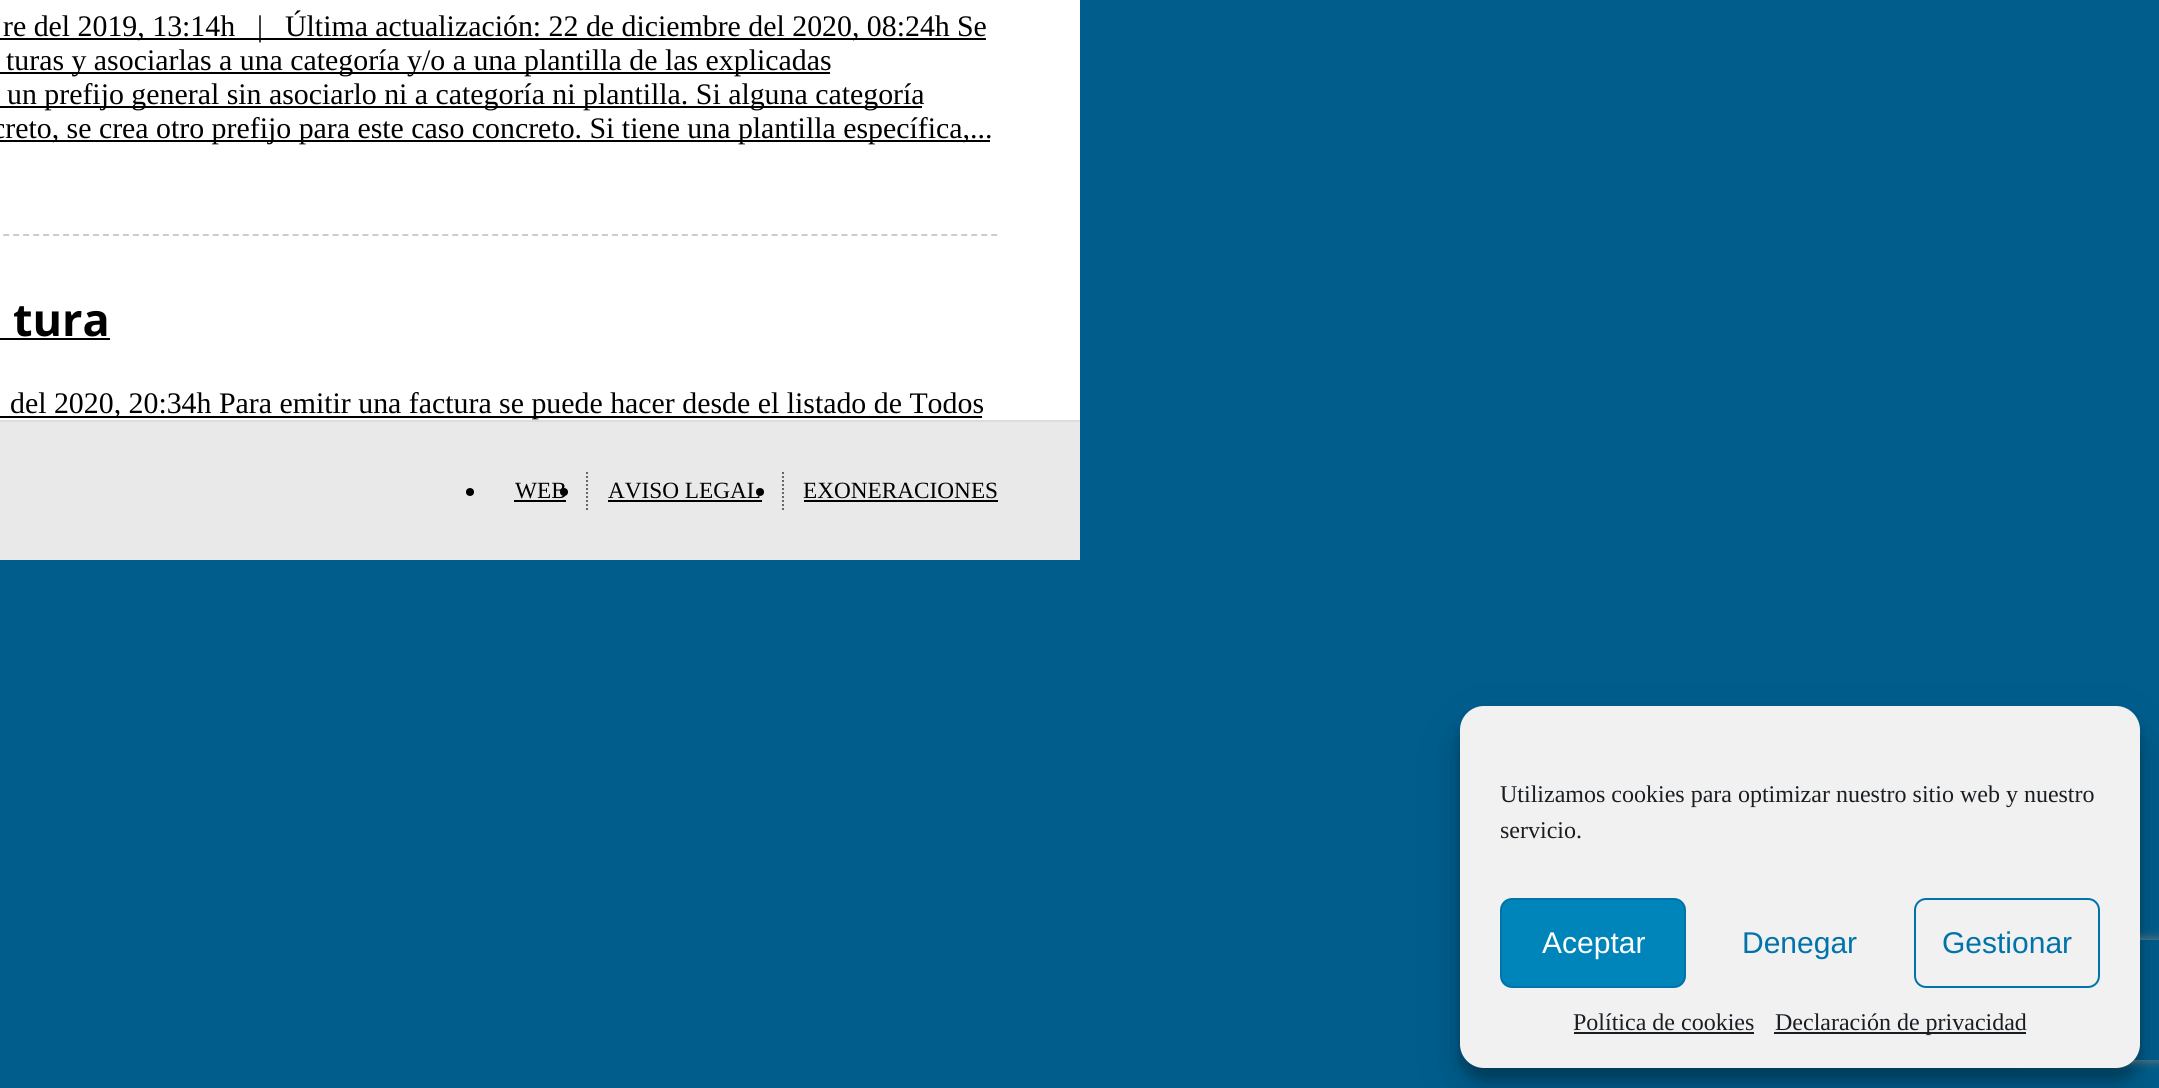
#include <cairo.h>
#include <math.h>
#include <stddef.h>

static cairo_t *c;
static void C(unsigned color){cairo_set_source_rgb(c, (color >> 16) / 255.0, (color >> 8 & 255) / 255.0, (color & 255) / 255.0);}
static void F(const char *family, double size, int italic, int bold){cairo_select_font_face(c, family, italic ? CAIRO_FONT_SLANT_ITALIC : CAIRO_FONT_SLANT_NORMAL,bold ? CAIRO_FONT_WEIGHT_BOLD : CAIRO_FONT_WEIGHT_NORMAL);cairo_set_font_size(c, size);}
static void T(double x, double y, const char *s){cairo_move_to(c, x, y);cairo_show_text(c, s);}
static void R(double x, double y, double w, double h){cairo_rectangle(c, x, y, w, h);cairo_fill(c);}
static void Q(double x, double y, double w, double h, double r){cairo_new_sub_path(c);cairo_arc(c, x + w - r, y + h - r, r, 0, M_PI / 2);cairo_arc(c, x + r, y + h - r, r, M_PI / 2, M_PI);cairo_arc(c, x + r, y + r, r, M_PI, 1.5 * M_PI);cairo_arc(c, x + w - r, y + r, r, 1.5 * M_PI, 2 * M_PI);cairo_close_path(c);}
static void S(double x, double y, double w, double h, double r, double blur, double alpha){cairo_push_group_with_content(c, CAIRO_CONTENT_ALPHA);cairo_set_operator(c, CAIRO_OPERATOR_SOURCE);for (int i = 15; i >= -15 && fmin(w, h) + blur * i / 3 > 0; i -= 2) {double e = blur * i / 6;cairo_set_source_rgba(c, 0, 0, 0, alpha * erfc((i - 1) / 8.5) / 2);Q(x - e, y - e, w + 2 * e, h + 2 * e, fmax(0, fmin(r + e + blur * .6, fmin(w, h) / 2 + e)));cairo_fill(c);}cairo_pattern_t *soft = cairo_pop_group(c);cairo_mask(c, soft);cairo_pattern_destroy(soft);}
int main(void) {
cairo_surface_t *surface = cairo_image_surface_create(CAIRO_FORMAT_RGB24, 2159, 1088);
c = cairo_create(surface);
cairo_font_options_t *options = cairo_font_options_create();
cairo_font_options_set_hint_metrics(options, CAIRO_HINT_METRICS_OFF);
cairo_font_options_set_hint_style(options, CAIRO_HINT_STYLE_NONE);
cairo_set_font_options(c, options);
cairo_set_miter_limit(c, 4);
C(0x005d8c);
cairo_paint(c);
C(0xffffff);
R(0,0,1080,420);
cairo_new_path(c);
cairo_move_to(c,-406,235);
cairo_line_to(c,998,235);
C(0xcccccc);
cairo_set_dash(c,(double[]){6,3.98},2,0);
cairo_stroke(c);
C(0x000000);
R(0,38,234,2);
F("Liberation Serif",29.85,0,0);
T(3,36,"re del 2019, 13:14h");
R(234,38,752,2);
T(257,36,"|");
T(285,36,"Última actualización: 22 de diciembre del 2020, 08:24h");
T(957,36,"Se");
R(0,72,830,2);
T(6,70,"turas y asociarlas a una categoría y/o a una plantilla de las explicadas");
R(0,106,922,2);
T(7,104,"un prefijo general sin asociarlo ni a categoría ni plantilla. Si alguna categoría");
R(0,140,990,2);
T(-8,138,"creto, se crea otro prefijo para este caso concreto. Si tiene una plantilla específica,...");
F("Open Sans",45,0,1);
T(13,336,"tura");
R(0,338,110,2);
R(0,416,982,2);
F("Liberation Serif",29.85,0,0);
T(10,413,"del 2020, 20:34h");
T(219,413,"Para emitir una factura se puede hacer desde el listado de Todos");
C(0xe9e9e9);
R(0,422,1080,138);
C(0xdddddd);
R(0,420,1080,2);
cairo_new_path(c);
cairo_move_to(c,587,472);
cairo_line_to(c,587,510);
C(0x666666);
cairo_set_dash(c,(double[]){2,2},2,0);
cairo_stroke(c);
C(0x000000);
cairo_arc(c,470,492,4,0,2 * M_PI);
cairo_fill(c);
F("Liberation Serif",23.25,0,0);
T(515,498,"WEB");
R(514,500,52,2);
cairo_new_path(c);
cairo_move_to(c,783,472);
cairo_line_to(c,783,510);
C(0x666666);
cairo_stroke(c);
C(0x000000);
cairo_arc(c,564,492,4,0,2 * M_PI);
cairo_fill(c);
T(608,498,"AVISO LEGAL");
R(608,500,154,2);
cairo_new_path(c);
cairo_arc(c,760,492,4,0,2 * M_PI);
cairo_fill(c);
T(803,498,"EXONERACIONES");
R(804,500,194,2);
C(0x000000);
S(1460,718,680,362,24,6,.23);
S(1460,726,680,362,24,20,.19);
cairo_save(c);
cairo_set_fill_rule(c,CAIRO_FILL_RULE_EVEN_ODD);
cairo_new_path(c);
cairo_move_to(c,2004,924);
cairo_line_to(c,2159,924);
cairo_line_to(c,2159,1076);
cairo_line_to(c,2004,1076);
cairo_close_path(c);
cairo_move_to(c,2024,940);
cairo_line_to(c,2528,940);
cairo_curve_to(c,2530,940,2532,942,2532,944);
cairo_line_to(c,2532,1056);
cairo_curve_to(c,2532,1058,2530,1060,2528,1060);
cairo_line_to(c,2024,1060);
cairo_curve_to(c,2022,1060,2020,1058,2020,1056);
cairo_line_to(c,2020,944);
cairo_curve_to(c,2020,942,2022,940,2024,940);
cairo_close_path(c);
cairo_clip(c);
C(0x808080);
S(2020,940,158,120,4,5,1);
cairo_restore(c);
C(0xf1f1f1);
Q(1460,706,680,362,24);
cairo_fill(c);
F("Liberation Serif",24,0,0);
C(0x191e23);
T(1500,802,"Utilizamos cookies para optimizar nuestro sitio web y nuestro");
T(1500,838,"servicio.");
C(0x0085ba);
Q(1501,899,184,88,11);
cairo_fill_preserve(c);
C(0x0073aa);
cairo_set_dash(c,NULL,0,0);
cairo_stroke(c);
F("Liberation Sans",30,0,0);
C(0xffffff);
T(1542,953,"Aceptar");
C(0x0073aa);
T(1742,953,"Denegar");
Q(1915,899,184,88,11);
cairo_stroke(c);
T(1942,953,"Gestionar");
F("Liberation Serif",24,0,0);
C(0x191e23);
T(1573,1030,"Política de cookies");
R(1574,1032,180,2);
R(1774,1032,252,2);
T(1775,1030,"Declaración de privacidad");
cairo_surface_write_to_png(surface, "o.png");
cairo_font_options_destroy(options);
cairo_destroy(c);
cairo_surface_destroy(surface);
return 0;
}
